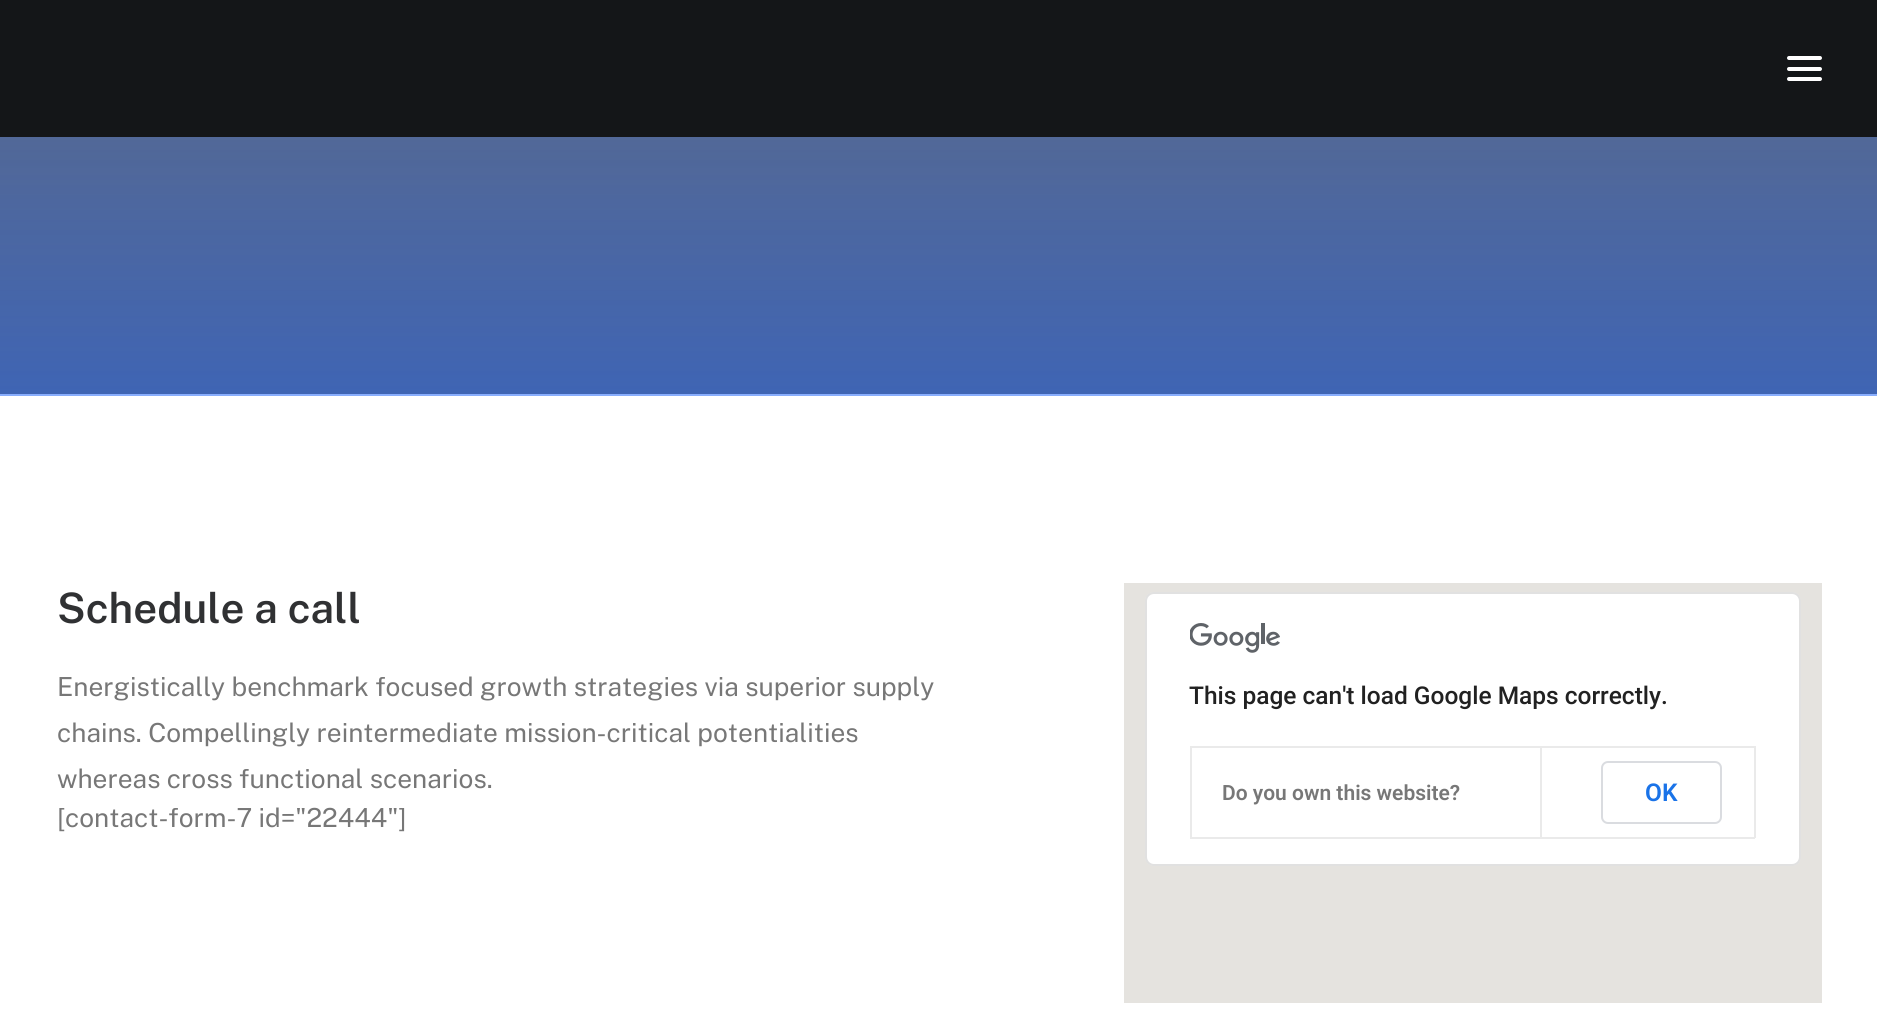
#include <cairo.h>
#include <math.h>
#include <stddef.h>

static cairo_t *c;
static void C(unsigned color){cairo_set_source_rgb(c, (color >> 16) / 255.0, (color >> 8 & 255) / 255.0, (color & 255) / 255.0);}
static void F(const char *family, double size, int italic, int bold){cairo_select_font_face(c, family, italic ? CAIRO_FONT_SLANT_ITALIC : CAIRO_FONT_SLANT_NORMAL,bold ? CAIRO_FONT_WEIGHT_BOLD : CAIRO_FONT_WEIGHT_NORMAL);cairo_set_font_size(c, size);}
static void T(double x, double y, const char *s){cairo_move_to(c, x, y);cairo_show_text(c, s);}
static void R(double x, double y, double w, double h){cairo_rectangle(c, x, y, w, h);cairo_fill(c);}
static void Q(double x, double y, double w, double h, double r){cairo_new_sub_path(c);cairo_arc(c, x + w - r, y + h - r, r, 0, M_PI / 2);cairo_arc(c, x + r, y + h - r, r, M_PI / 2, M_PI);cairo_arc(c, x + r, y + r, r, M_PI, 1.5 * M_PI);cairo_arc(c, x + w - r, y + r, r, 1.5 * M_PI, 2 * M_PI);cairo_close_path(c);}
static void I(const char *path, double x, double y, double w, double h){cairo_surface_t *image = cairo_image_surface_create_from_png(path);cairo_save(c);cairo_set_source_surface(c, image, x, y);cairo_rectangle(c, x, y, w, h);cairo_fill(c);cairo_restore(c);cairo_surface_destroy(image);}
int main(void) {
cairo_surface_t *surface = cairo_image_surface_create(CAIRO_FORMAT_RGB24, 1877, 1034);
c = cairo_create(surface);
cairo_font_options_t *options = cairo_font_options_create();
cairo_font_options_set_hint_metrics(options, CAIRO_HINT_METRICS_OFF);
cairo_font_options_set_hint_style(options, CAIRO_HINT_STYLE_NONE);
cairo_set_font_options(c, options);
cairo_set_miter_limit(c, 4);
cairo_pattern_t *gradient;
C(0xffffff);
cairo_paint(c);
C(0x141618);
R(0,0,1877,137);
C(0xffffff);
Q(1787,67,35,4,2);
cairo_fill(c);
Q(1787,56,35,4,2);
cairo_fill(c);
Q(1787,77,35,4,2);
cairo_fill(c);
C(0x6d6d6e);
R(0,137,1877,257);
gradient = cairo_pattern_create_linear(940,-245,940,396);
cairo_pattern_add_color_stop_rgba(gradient,0,0.067,0.361,0.98,0);
cairo_pattern_add_color_stop_rgba(gradient,1,0.067,0.361,0.98,.5);
cairo_set_source(c,gradient);
cairo_pattern_destroy(gradient);
R(0,137,1877,259);
F("Public Sans SemiBold",42,0,0);
C(0x303133);
T(57,623,"Schedule a call");
F("Public Sans",26.25,0,0);
C(0x777777);
T(57,696,"Energistically benchmark focused growth strategies via superior supply");
T(57,742,"chains. Compellingly reintermediate mission-critical potentialities");
T(57,788,"whereas cross functional scenarios.");
T(57,827,"[contact-form-7 id=\"22444\"]");
C(0xe5e3df);
R(1124,583,698,420);
C(0xffffff);
Q(1145,592,656,274,9);
cairo_fill(c);
Q(1146,593,654,272,8);
cairo_set_source_rgba(c,0,0,0,0.12);
cairo_stroke(c);
I("1.png",1190,623,90,30);
F("Roboto Medium",24.5,0,0);
C(0x212121);
T(1189,704,"This page can't load Google Maps correctly.");
C(0xeaeaea);
R(1190,746,565,2);
R(1754,746,2,92);
R(1190,837,565,2);
R(1190,746,2,92);
F("Roboto SemiBold",21,0,0);
C(0x777777);
T(1222,800,"Do you own this website?");
C(0xeaeaea);
R(1540,746,2,92);
Q(1602,762,119,61,6);
C(0xdadce0);
cairo_stroke(c);
F("Roboto SemiBold",24.5,0,0);
C(0x1a73e8);
T(1645,801,"OK");
cairo_surface_write_to_png(surface, "o.png");
cairo_font_options_destroy(options);
cairo_destroy(c);
cairo_surface_destroy(surface);
return 0;
}
